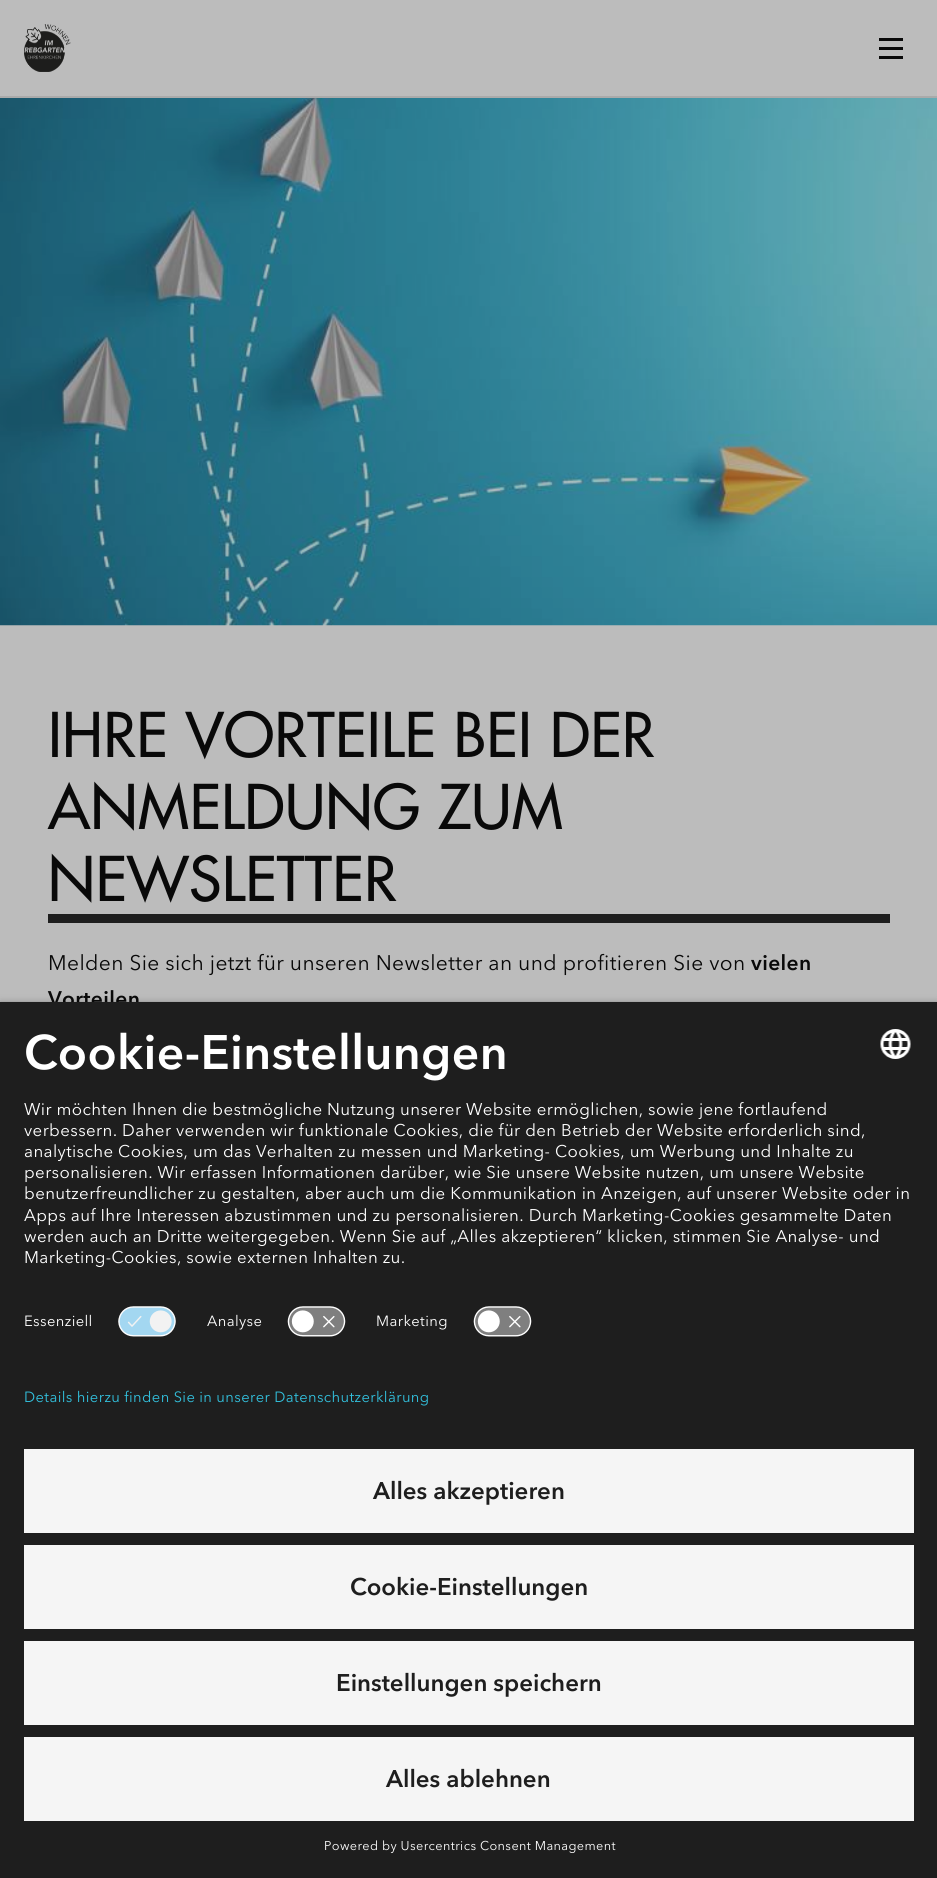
#include <cairo.h>
#include <math.h>
#include <stddef.h>

static cairo_t *c;
static void C(unsigned color){cairo_set_source_rgb(c, (color >> 16) / 255.0, (color >> 8 & 255) / 255.0, (color & 255) / 255.0);}
static void F(const char *family, double size, int italic, int bold){cairo_select_font_face(c, family, italic ? CAIRO_FONT_SLANT_ITALIC : CAIRO_FONT_SLANT_NORMAL,bold ? CAIRO_FONT_WEIGHT_BOLD : CAIRO_FONT_WEIGHT_NORMAL);cairo_set_font_size(c, size);}
static void T(double x, double y, const char *s){cairo_move_to(c, x, y);cairo_show_text(c, s);}
static void L(double x, double y, const char *s, double letter, double word){cairo_move_to(c, x, y);while (*s) {char ch[5] = {0};int n = 0;do ch[n++] = *s++; while ((*s & 0xC0) == 0x80);cairo_show_text(c, ch);cairo_rel_move_to(c, letter + word * (*ch == ' '), 0);}}
static void R(double x, double y, double w, double h){cairo_rectangle(c, x, y, w, h);cairo_fill(c);}
static void Q(double x, double y, double w, double h, double r){cairo_new_sub_path(c);cairo_arc(c, x + w - r, y + h - r, r, 0, M_PI / 2);cairo_arc(c, x + r, y + h - r, r, M_PI / 2, M_PI);cairo_arc(c, x + r, y + r, r, M_PI, 1.5 * M_PI);cairo_arc(c, x + w - r, y + r, r, 1.5 * M_PI, 2 * M_PI);cairo_close_path(c);}
static void S(double x, double y, double w, double h, double r, double blur, double alpha){cairo_push_group_with_content(c, CAIRO_CONTENT_ALPHA);cairo_set_operator(c, CAIRO_OPERATOR_SOURCE);for (int i = 15; i >= -15 && fmin(w, h) + blur * i / 3 > 0; i -= 2) {double e = blur * i / 6;cairo_set_source_rgba(c, 0, 0, 0, alpha * erfc((i - 1) / 8.5) / 2);Q(x - e, y - e, w + 2 * e, h + 2 * e, fmax(0, fmin(r + e + blur * .6, fmin(w, h) / 2 + e)));cairo_fill(c);}cairo_pattern_t *soft = cairo_pop_group(c);cairo_mask(c, soft);cairo_pattern_destroy(soft);}
static void I(const char *path, double x, double y, double w, double h){cairo_surface_t *image = cairo_image_surface_create_from_png(path);cairo_save(c);cairo_set_source_surface(c, image, x, y);cairo_rectangle(c, x, y, w, h);cairo_fill(c);cairo_restore(c);cairo_surface_destroy(image);}
int main(void) {
cairo_surface_t *surface = cairo_image_surface_create(CAIRO_FORMAT_RGB24, 937, 1878);
c = cairo_create(surface);
cairo_font_options_t *options = cairo_font_options_create();
cairo_font_options_set_hint_metrics(options, CAIRO_HINT_METRICS_OFF);
cairo_font_options_set_hint_style(options, CAIRO_HINT_STYLE_NONE);
cairo_set_font_options(c, options);
cairo_set_miter_limit(c, 4);
C(0xbcbcbc);
cairo_paint(c);
C(0xaaaaaa);
R(0,96,937,2);
I("1.png",24,24,47,48);
C(0x090909);
R(879,47,24,3);
R(879,38,24,3);
R(879,56,24,3);
I("2.png",0,98,937,528);
C(0x1e1e1e);
R(48,914,842,9);
F("Futura Medium",60,0,0);
C(0x090909);
L(48,757,"IHRE VORTEILE BEI DER",.38,0);
L(48,829,"ANMELDUNG ZUM",.38,0);
L(48,901,"NEWSLETTER",.38,0);
F("Avenir Next",21,0,0);
L(48,970,"Melden Sie sich jetzt für unseren Newsletter an und profitieren Sie von",.38,0);
F("Avenir Next",21,0,1);
L(751,970,"vielen",.38,0);
L(48,1006,"Vorteilen",.38,0);
C(0x000000);
S(0,1007,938,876,0,5,.8);
C(0x1e1e1e);
R(0,1002,937,876);
F("Avenir Next",48,0,1);
C(0xffffff);
L(24,1069,"Cookie-Einstellungen",.38,0);
I("3.png",880,1029,31,30);
F("Avenir Next",16.88,0,0);
L(24,1115,"Wir möchten Ihnen die bestmögliche Nutzung unserer Website ermöglichen, sowie jene fortlaufend",.38,0);
L(24,1136,"verbessern. Daher verwenden wir funktionale Cookies, die für den Betrieb der Website erforderlich sind,",.38,0);
L(24,1157,"analytische Cookies, um das Verhalten zu messen und Marketing- Cookies, um Werbung und Inhalte zu",.38,0);
L(24,1178,"personalisieren. Wir erfassen Informationen darüber, wie Sie unsere Website nutzen, um unsere Website",.38,0);
L(24,1199,"benutzerfreundlicher zu gestalten, aber auch um die Kommunikation in Anzeigen, auf unserer Website oder in",.38,0);
L(24,1221,"Apps auf Ihre Interessen abzustimmen und zu personalisieren. Durch Marketing-Cookies gesammelte Daten",.38,0);
L(24,1242,"werden auch an Dritte weitergegeben. Wenn Sie auf „Alles akzeptieren“ klicken, stimmen Sie Analyse- und",.38,0);
L(24,1263,"Marketing-Cookies, sowie externen Inhalten zu.",.38,0);
F("Avenir Next",14.75,0,0);
L(24,1326,"Essenziell",.38,0);
I("4.png",118,1306,58,31);
L(207,1326,"Analyse",.38,0);
I("5.png",287,1306,59,31);
L(376,1326,"Marketing",.38,0);
I("5.png",473,1306,59,31);
C(0x32c1de);
L(24,1402,"Details hierzu finden Sie in unserer Datenschutzerklärung",.38,0);
C(0xf5f5f5);
R(24,1449,890,84);
F("Avenir Next",24,0,1);
C(0x1e1e1e);
T(373,1499,"Alles akzeptieren");
C(0xf5f5f5);
R(24,1545,890,84);
C(0x1e1e1e);
T(350,1595,"Cookie-Einstellungen");
C(0xf5f5f5);
R(24,1641,890,84);
C(0x1e1e1e);
T(336,1691,"Einstellungen speichern");
C(0xf5f5f5);
R(24,1737,890,84);
C(0x1e1e1e);
T(386,1787,"Alles ablehnen");
F("Avenir Next",12.7,0,0);
C(0xffffff);
L(324,1850,"Powered by Usercentrics Consent Management",.38,0);
cairo_surface_write_to_png(surface, "o.png");
cairo_font_options_destroy(options);
cairo_destroy(c);
cairo_surface_destroy(surface);
return 0;
}
